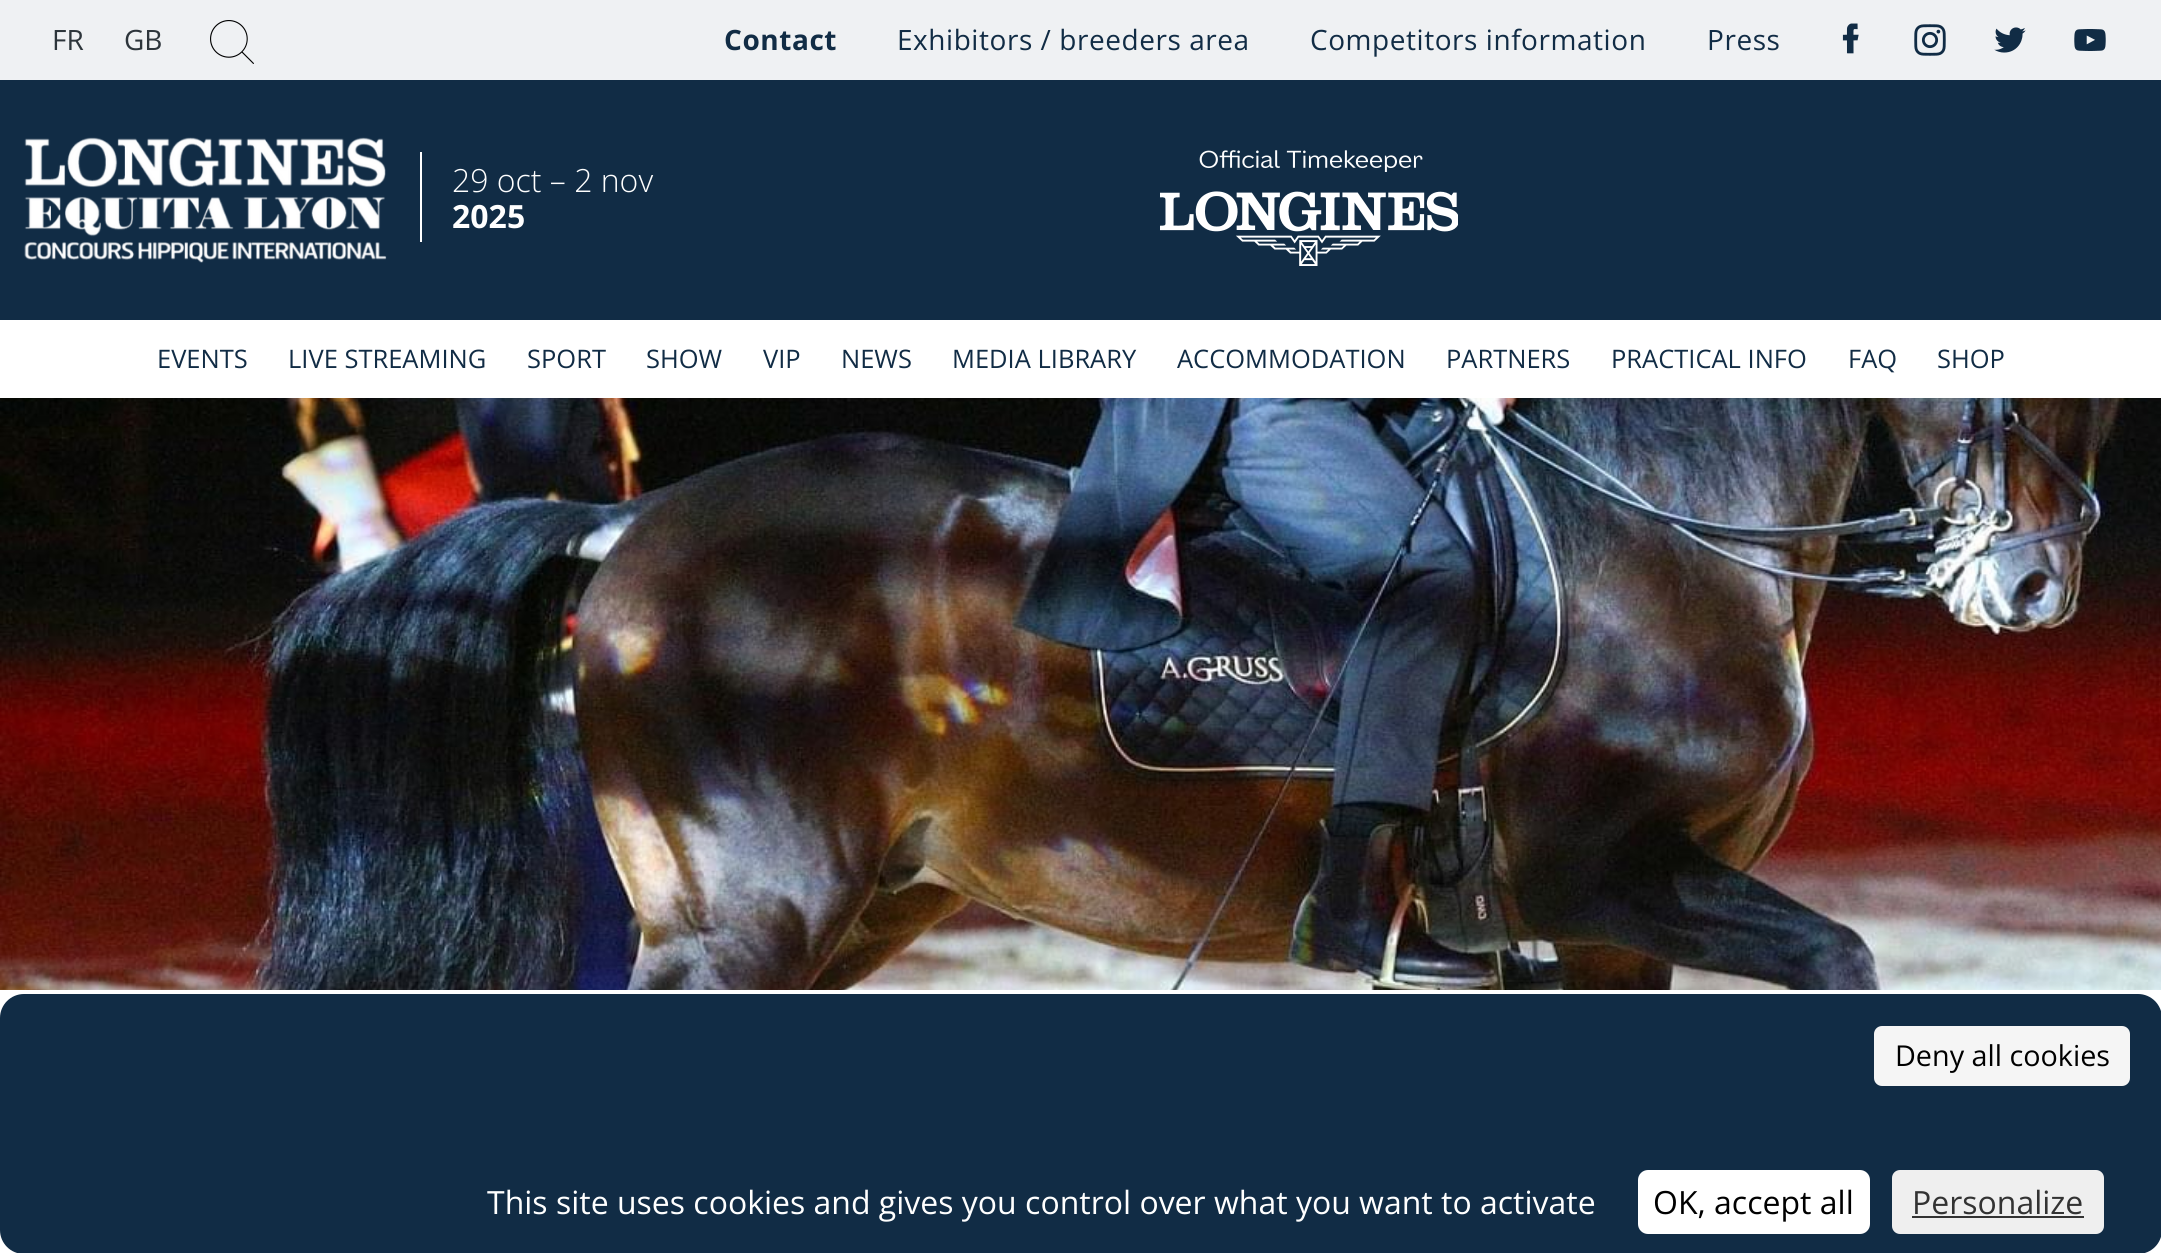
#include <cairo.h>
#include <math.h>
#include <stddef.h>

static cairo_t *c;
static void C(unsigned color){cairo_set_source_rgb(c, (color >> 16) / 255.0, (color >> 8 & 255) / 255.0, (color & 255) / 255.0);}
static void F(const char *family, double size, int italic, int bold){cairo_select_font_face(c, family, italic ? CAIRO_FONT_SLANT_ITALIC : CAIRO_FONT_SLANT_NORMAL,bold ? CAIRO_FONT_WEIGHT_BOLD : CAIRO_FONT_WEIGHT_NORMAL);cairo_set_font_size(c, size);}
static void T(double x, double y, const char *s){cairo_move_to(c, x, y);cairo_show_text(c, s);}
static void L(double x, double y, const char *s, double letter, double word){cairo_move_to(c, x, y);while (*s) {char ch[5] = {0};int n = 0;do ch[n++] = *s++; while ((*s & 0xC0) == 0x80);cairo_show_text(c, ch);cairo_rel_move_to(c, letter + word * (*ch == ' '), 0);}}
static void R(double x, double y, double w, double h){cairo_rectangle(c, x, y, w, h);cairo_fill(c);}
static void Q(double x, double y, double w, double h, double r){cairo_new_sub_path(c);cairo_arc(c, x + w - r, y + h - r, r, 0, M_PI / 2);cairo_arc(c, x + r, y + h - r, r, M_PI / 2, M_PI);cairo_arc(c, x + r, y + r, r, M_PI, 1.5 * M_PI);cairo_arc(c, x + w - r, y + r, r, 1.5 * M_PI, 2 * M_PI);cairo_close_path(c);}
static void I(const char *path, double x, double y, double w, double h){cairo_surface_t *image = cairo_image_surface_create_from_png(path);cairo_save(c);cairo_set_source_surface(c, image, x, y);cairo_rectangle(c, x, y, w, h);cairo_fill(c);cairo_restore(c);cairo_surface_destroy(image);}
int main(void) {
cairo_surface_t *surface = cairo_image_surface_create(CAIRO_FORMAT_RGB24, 2161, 1253);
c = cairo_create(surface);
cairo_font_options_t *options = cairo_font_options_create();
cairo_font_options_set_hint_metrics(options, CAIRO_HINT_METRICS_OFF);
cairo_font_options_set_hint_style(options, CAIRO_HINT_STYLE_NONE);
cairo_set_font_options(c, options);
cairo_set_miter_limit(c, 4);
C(0xffffff);
cairo_paint(c);
C(0xeff1f3);
R(0,0,2161,80);
F("Open Sans",28,0,0);
C(0x2d353b);
T(52,50,"FR");
T(124,50,"GB");
I("1.png",210,20,44,44);
F("Open Sans",28,0,1);
C(0x112c45);
L(724,50,"Contact",.55,0);
F("Open Sans",28,0,0);
L(897,50,"Exhibitors / breeders area",.55,0);
L(1310,50,"Competitors information",.55,0);
L(1707,50,"Press",.55,0);
I("2.png",1842,23,17,31);
I("3.png",1914,24,32,32);
I("4.png",1994,27,32,26);
I("5.png",2074,29,32,22);
R(0,80,2161,240);
I("6.png",24,137,363,126);
C(0xffffff);
R(420,152,2,90);
F("Open Sans Light",32,0,0);
T(452,192,"29 oct – 2 nov");
F("Open Sans",32,0,1);
T(452,228,"2025");
I("7.png",1160,150,298,116);
F("Open Sans",25.5,0,0);
C(0x112c45);
T(157,368,"EVENTS");
T(288,368,"LIVE STREAMING");
T(527,368,"SPORT");
T(646,368,"SHOW");
T(763,368,"VIP");
T(841,368,"NEWS");
T(952,368,"MEDIA LIBRARY");
T(1177,368,"ACCOMMODATION");
T(1446,368,"PARTNERS");
T(1611,368,"PRACTICAL INFO");
T(1848,368,"FAQ");
T(1937,368,"SHOP");
I("8.png",0,398,2161,592);
Q(0,994,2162,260,24);
cairo_fill(c);
C(0xf5f5f5);
Q(1874,1026,256,60,8);
cairo_fill(c);
F("Open Sans",28.75,0,0);
C(0x000000);
T(1895,1066,"Deny all cookies");
F("Open Sans",32,0,0);
C(0xffffff);
T(487,1214,"This site uses cookies and gives you control over what you want to activate");
Q(1638,1170,232,64,10);
cairo_fill(c);
C(0x000000);
T(1653,1214,"OK, accept all");
C(0xefefef);
Q(1892,1170,212,64,8);
cairo_fill(c);
C(0x333333);
T(1912,1214,"Personalize");
R(1912,1216,172,2);
cairo_surface_write_to_png(surface, "o.png");
cairo_font_options_destroy(options);
cairo_destroy(c);
cairo_surface_destroy(surface);
return 0;
}
